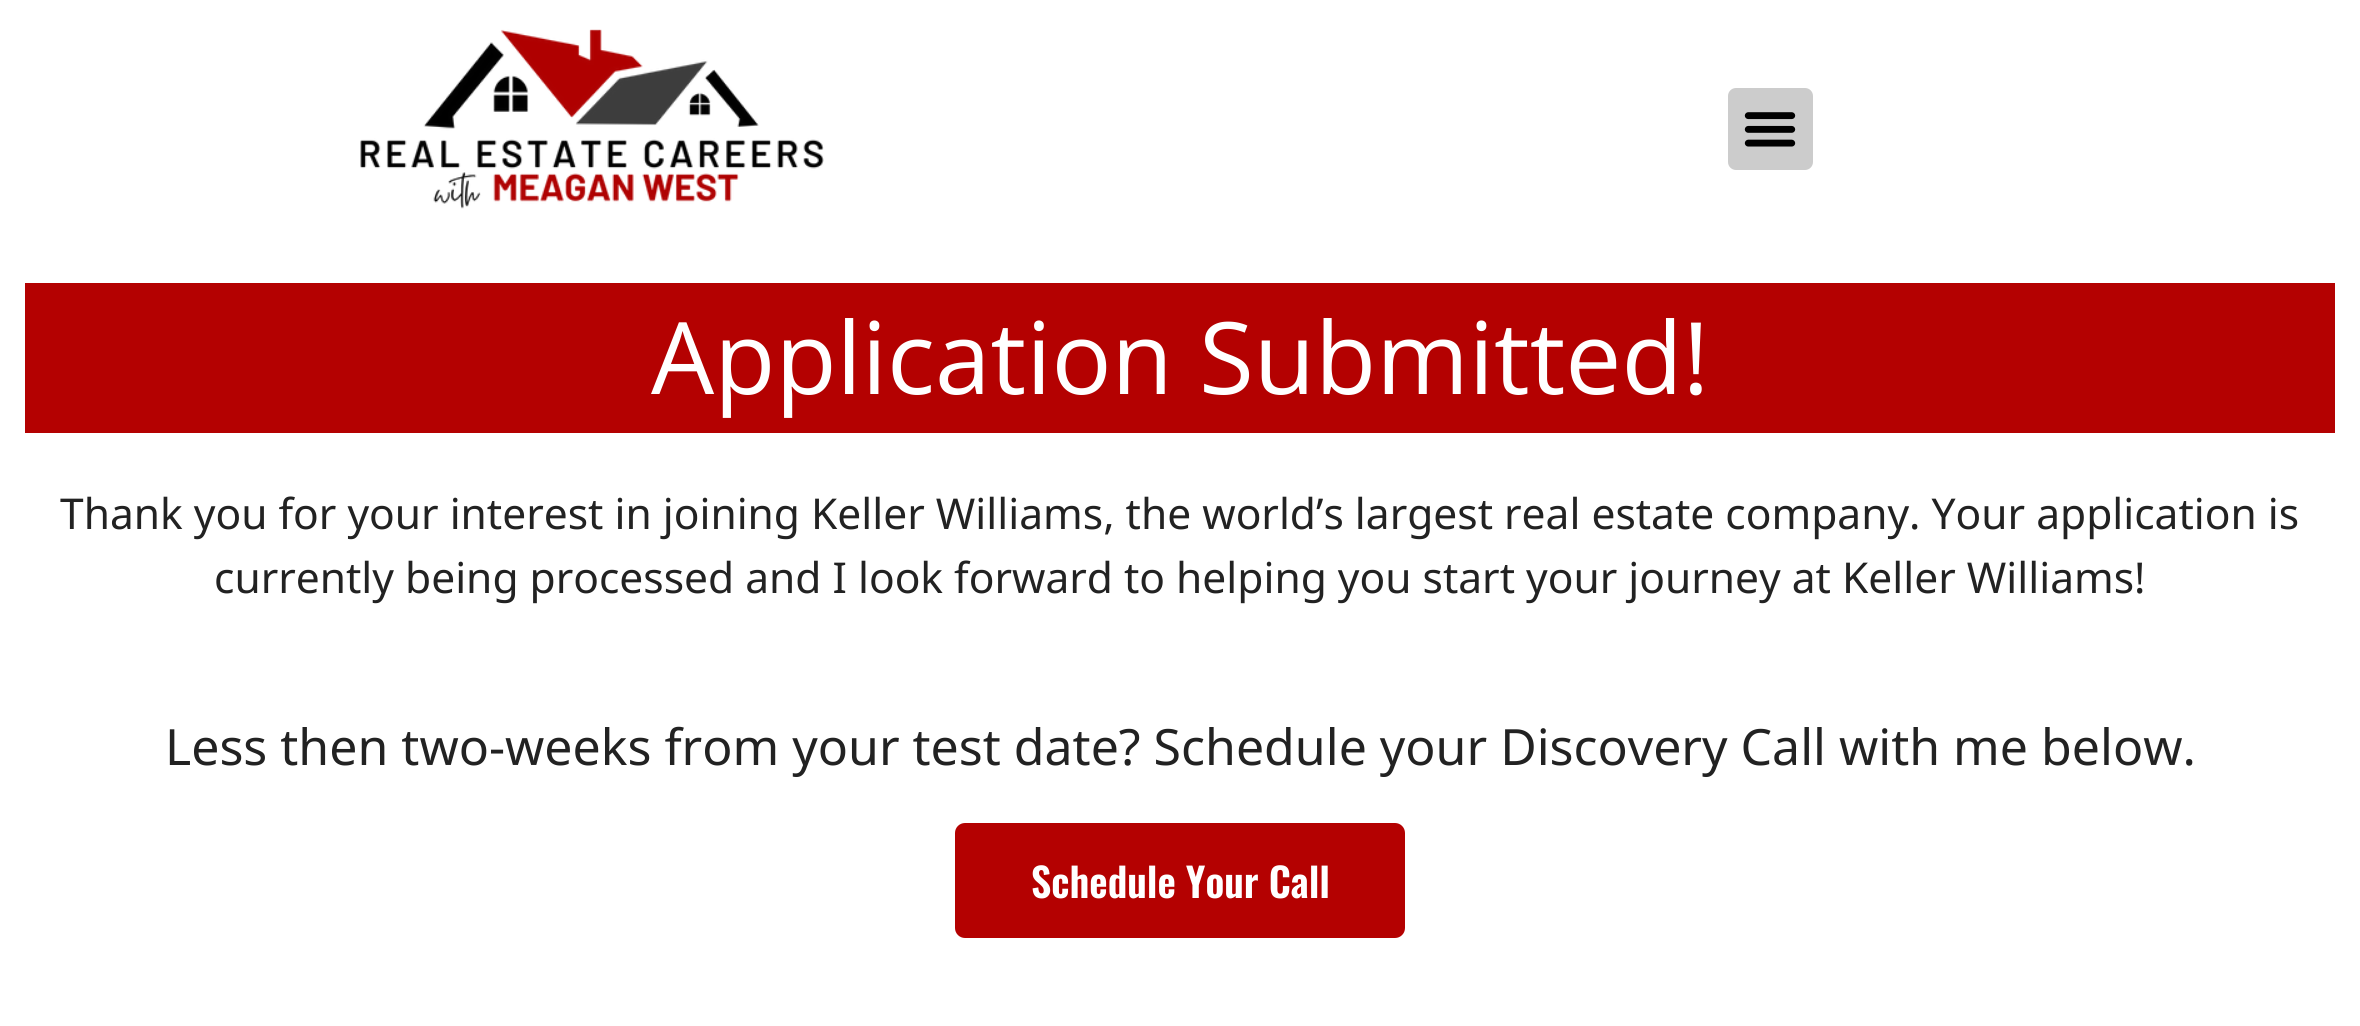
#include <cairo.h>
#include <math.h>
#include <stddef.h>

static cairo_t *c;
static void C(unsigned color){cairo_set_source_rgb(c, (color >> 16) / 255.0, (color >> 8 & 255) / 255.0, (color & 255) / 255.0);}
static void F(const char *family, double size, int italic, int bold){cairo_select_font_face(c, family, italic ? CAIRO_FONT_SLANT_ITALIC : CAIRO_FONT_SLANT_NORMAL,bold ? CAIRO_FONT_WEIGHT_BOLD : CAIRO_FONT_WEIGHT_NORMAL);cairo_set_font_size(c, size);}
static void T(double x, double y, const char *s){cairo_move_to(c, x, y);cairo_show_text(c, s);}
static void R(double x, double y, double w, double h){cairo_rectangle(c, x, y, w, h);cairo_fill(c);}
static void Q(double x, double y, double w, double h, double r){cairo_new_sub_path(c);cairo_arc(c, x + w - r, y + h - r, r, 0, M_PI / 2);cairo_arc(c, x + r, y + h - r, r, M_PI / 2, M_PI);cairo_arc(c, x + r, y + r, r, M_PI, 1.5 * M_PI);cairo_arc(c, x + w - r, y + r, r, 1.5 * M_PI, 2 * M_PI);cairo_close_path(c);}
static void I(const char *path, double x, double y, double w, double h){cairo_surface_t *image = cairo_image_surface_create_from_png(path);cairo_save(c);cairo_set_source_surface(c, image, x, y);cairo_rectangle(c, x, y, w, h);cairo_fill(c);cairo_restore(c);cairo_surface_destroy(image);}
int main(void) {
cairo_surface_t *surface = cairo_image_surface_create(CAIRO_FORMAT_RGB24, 2360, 1026);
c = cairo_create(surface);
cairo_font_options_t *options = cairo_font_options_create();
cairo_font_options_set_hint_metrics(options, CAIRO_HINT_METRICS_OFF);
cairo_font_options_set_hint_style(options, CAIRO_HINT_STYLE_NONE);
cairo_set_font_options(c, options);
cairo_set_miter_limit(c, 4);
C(0xffffff);
cairo_paint(c);
I("1.png",360,29,464,180);
C(0xcccccc);
Q(1728,88,85,82,8);
cairo_fill(c);
I("2.png",1744,112,52,35);
C(0xb40101);
R(25,283,2310,150);
F("Open Sans",100,0,0);
C(0xffffff);
T(651,394,"Application Submitted!");
F("Noto Sans",42.5,0,0);
C(0x222222);
T(60,529,"Thank you for your interest in joining Keller Williams, the world’s largest real estate company. Your application is");
T(214,593,"currently being processed and I look forward to helping you start your journey at Keller Williams!");
F("Noto Sans",50,0,0);
T(165,765,"Less then two-weeks from your test date? Schedule your Discovery Call with me below.");
C(0xb40101);
Q(955,823,450,115,10);
cairo_fill(c);
F("Oswald SemiBold",40,0,0);
C(0xffffff);
T(1031,898,"Schedule Your Call");
cairo_surface_write_to_png(surface, "o.png");
cairo_font_options_destroy(options);
cairo_destroy(c);
cairo_surface_destroy(surface);
return 0;
}
